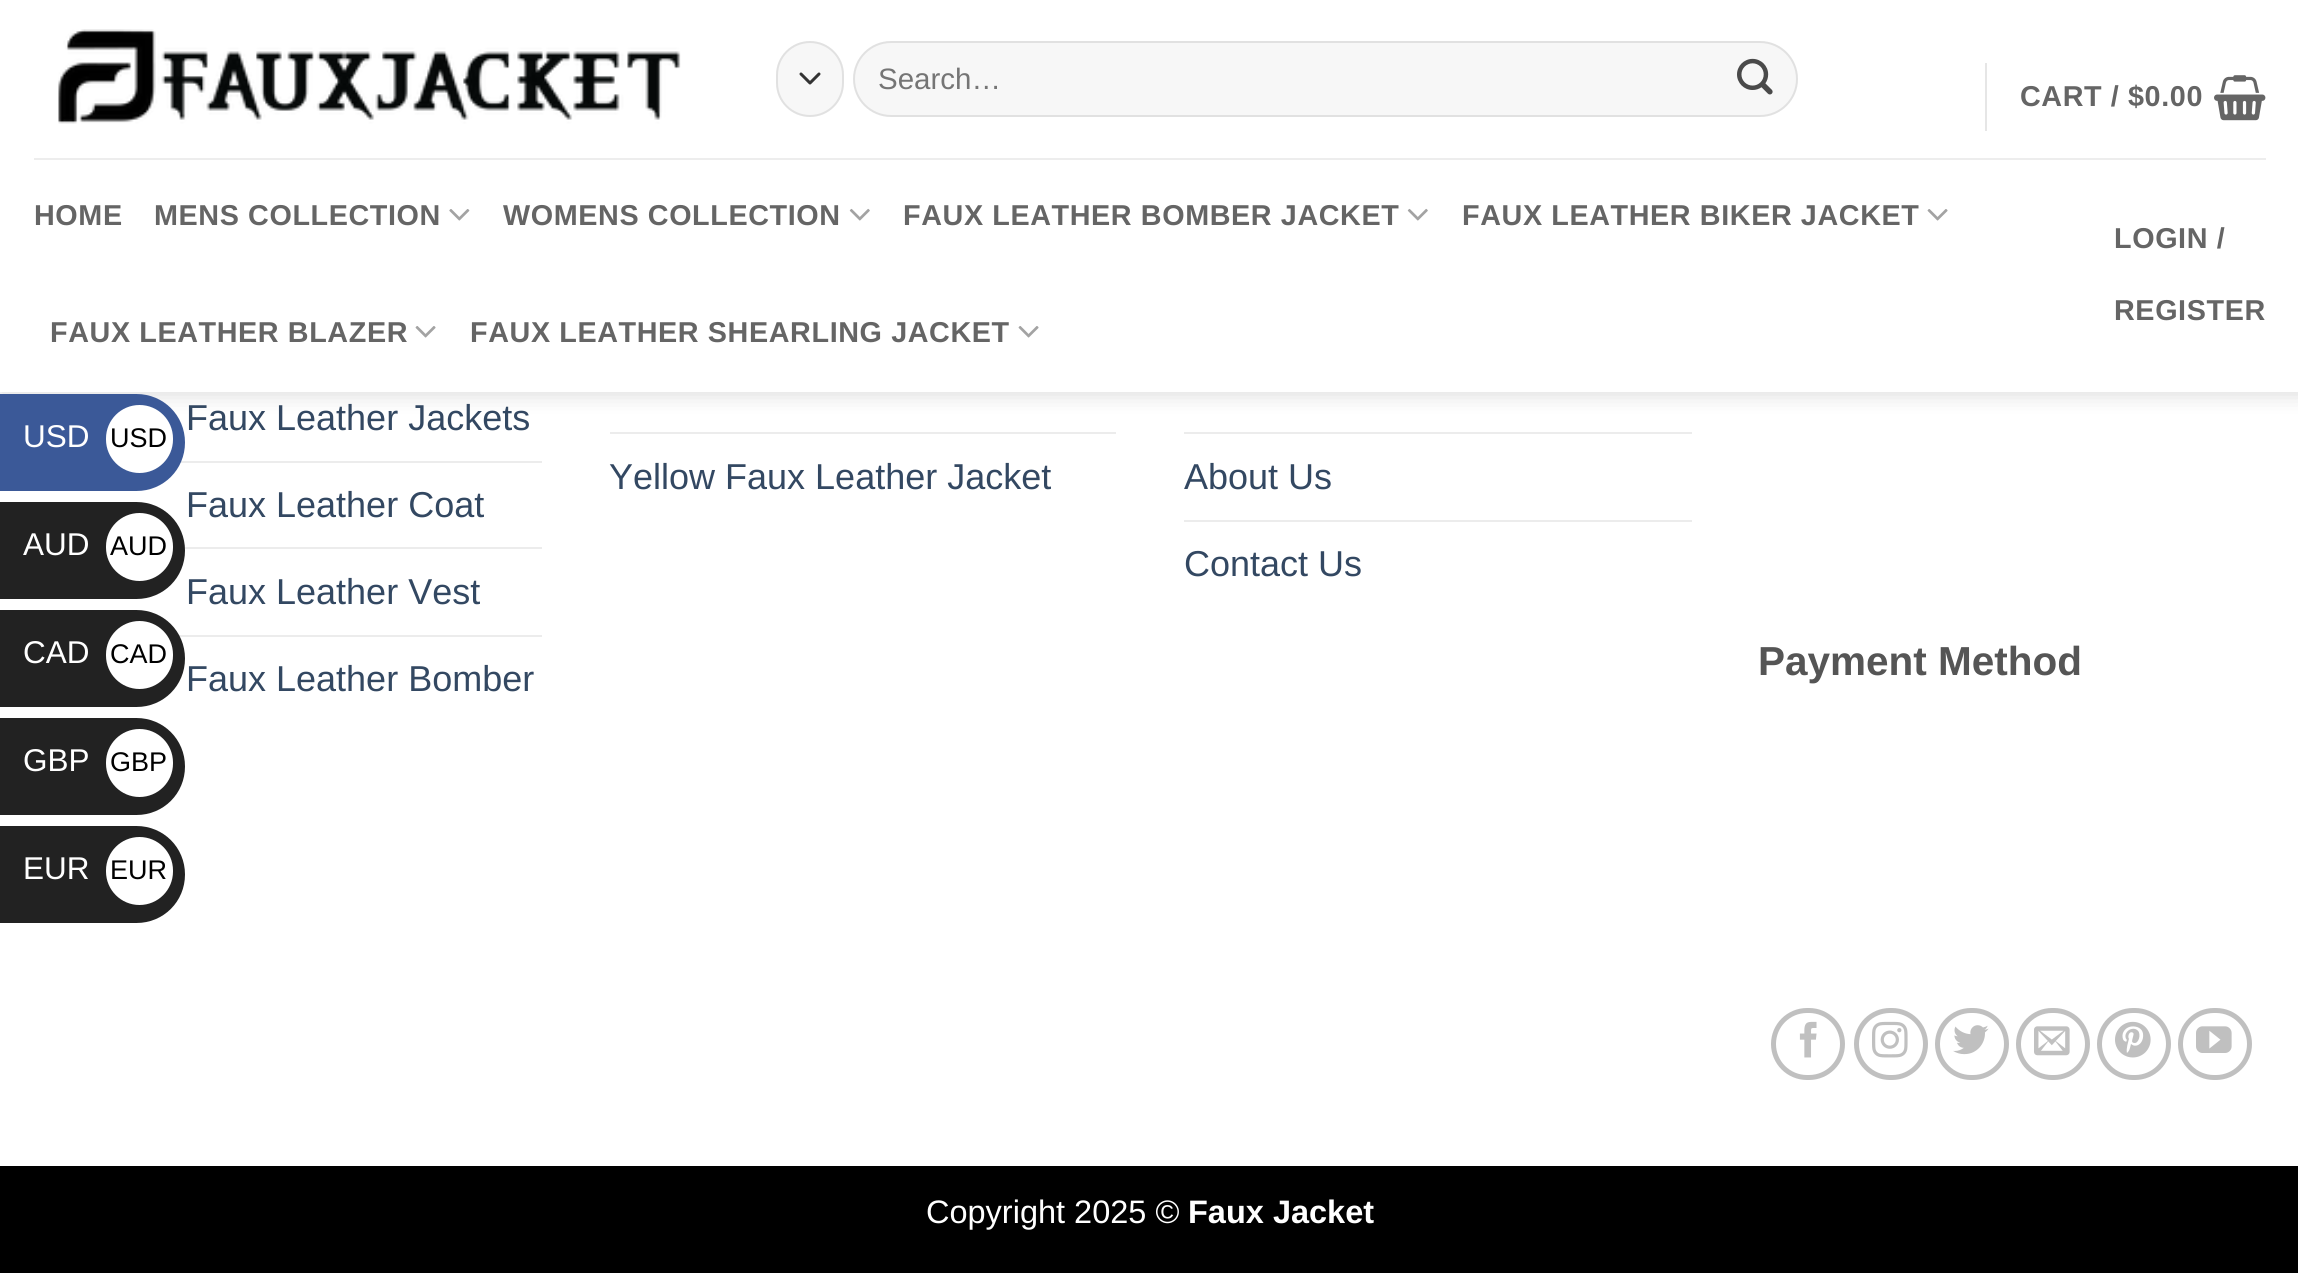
#include <cairo.h>
#include <math.h>
#include <stddef.h>

static cairo_t *c;
static void C(unsigned color){cairo_set_source_rgb(c, (color >> 16) / 255.0, (color >> 8 & 255) / 255.0, (color & 255) / 255.0);}
static void F(const char *family, double size, int italic, int bold){cairo_select_font_face(c, family, italic ? CAIRO_FONT_SLANT_ITALIC : CAIRO_FONT_SLANT_NORMAL,bold ? CAIRO_FONT_WEIGHT_BOLD : CAIRO_FONT_WEIGHT_NORMAL);cairo_set_font_size(c, size);}
static void T(double x, double y, const char *s){cairo_move_to(c, x, y);cairo_show_text(c, s);}
static void L(double x, double y, const char *s, double letter, double word){cairo_move_to(c, x, y);while (*s) {char ch[5] = {0};int n = 0;do ch[n++] = *s++; while ((*s & 0xC0) == 0x80);cairo_show_text(c, ch);cairo_rel_move_to(c, letter + word * (*ch == ' '), 0);}}
static void R(double x, double y, double w, double h){cairo_rectangle(c, x, y, w, h);cairo_fill(c);}
static void Q(double x, double y, double w, double h, double r){cairo_new_sub_path(c);cairo_arc(c, x + w - r, y + h - r, r, 0, M_PI / 2);cairo_arc(c, x + r, y + h - r, r, M_PI / 2, M_PI);cairo_arc(c, x + r, y + r, r, M_PI, 1.5 * M_PI);cairo_arc(c, x + w - r, y + r, r, 1.5 * M_PI, 2 * M_PI);cairo_close_path(c);}
static void S(double x, double y, double w, double h, double r, double blur, double alpha){cairo_push_group_with_content(c, CAIRO_CONTENT_ALPHA);cairo_set_operator(c, CAIRO_OPERATOR_SOURCE);for (int i = 15; i >= -15 && fmin(w, h) + blur * i / 3 > 0; i -= 2) {double e = blur * i / 6;cairo_set_source_rgba(c, 0, 0, 0, alpha * erfc((i - 1) / 8.5) / 2);Q(x - e, y - e, w + 2 * e, h + 2 * e, fmax(0, fmin(r + e + blur * .6, fmin(w, h) / 2 + e)));cairo_fill(c);}cairo_pattern_t *soft = cairo_pop_group(c);cairo_mask(c, soft);cairo_pattern_destroy(soft);}
static void I(const char *path, double x, double y, double w, double h){cairo_surface_t *image = cairo_image_surface_create_from_png(path);cairo_save(c);cairo_set_source_surface(c, image, x, y);cairo_rectangle(c, x, y, w, h);cairo_fill(c);cairo_restore(c);cairo_surface_destroy(image);}
int main(void) {
cairo_surface_t *surface = cairo_image_surface_create(CAIRO_FORMAT_RGB24, 2298, 1273);
c = cairo_create(surface);
cairo_font_options_t *options = cairo_font_options_create();
cairo_font_options_set_hint_metrics(options, CAIRO_HINT_METRICS_OFF);
cairo_font_options_set_hint_style(options, CAIRO_HINT_STYLE_NONE);
cairo_set_font_options(c, options);
cairo_set_miter_limit(c, 4);
C(0xffffff);
cairo_paint(c);
C(0x000000);
S(2,2,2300,392,0,11,.15);
C(0xffffff);
R(0,0,2298,392);
I("1.png",58,29,623,95);
C(0xf7f7f7);
Q(776,41,68,76,34);
cairo_fill(c);
cairo_new_path(c);
cairo_move_to(c,801,74);
cairo_line_to(c,810,83);
cairo_line_to(c,819,74);
C(0x333333);
cairo_set_line_width(c,3);
cairo_set_line_cap(c,CAIRO_LINE_CAP_ROUND);
cairo_set_line_join(c,CAIRO_LINE_JOIN_ROUND);
cairo_stroke(c);
Q(777,42,66,74,33);
cairo_set_source_rgba(c,0,0,0,0.09);
cairo_set_line_width(c,2);
cairo_set_line_cap(c,CAIRO_LINE_CAP_BUTT);
cairo_set_line_join(c,CAIRO_LINE_JOIN_MITER);
cairo_stroke(c);
C(0xf7f7f7);
Q(853,41,945,76,38);
cairo_fill(c);
Q(854,42,943,74,37);
cairo_set_source_rgba(c,0,0,0,0.09);
cairo_stroke(c);
F("Liberation Sans",29.5,0,0);
C(0x757575);
T(878,89,"Search…");
I("2.png",1737,58,36,37);
C(0xe6e6e6);
R(1985,63,2,68);
F("Liberation Sans",28.75,0,1);
C(0x656565);
L(2020,106,"CART / $0.00",.6,0);
I("3.png",2214,75,52,46);
C(0xededed);
R(34,158,2232,2);
C(0x656565);
L(34,225,"HOME",.6,0);
L(154,225,"MENS COLLECTION",.6,0);
I("4.png",449,209,21,12);
L(503,225,"WOMENS COLLECTION",.6,0);
I("5.png",849,208,21,13);
L(903,225,"FAUX LEATHER BOMBER JACKET",.6,0);
I("5.png",1407,208,21,13);
L(1462,225,"FAUX LEATHER BIKER JACKET",.6,0);
I("6.png",1927,209,21,12);
L(50,342,"FAUX LEATHER BLAZER",.6,0);
I("6.png",415,326,21,12);
L(470,342,"FAUX LEATHER SHEARLING JACKET",.6,0);
I("6.png",1018,326,21,12);
L(2114,248,"LOGIN /",.6,0);
L(2114,320,"REGISTER",.6,0);
F("Liberation Sans",36,0,0);
C(0x334862);
T(186,430,"Faux Leather Jackets");
C(0xececec);
R(180,461,362,2);
C(0x334862);
T(186,517,"Faux Leather Coat");
C(0xececec);
R(184,547,358,2);
C(0x334862);
T(186,604,"Faux Leather Vest");
C(0xececec);
R(178,635,364,2);
C(0x334862);
T(186,691,"Faux Leather Bomber");
C(0xececec);
R(610,432,506,2);
C(0x334862);
T(609,489,"Yellow Faux Leather Jacket");
C(0xececec);
R(1184,432,508,2);
C(0x334862);
T(1184,489,"About Us");
C(0xececec);
R(1184,520,508,2);
C(0x334862);
T(1184,576,"Contact Us");
F("Liberation Sans",40.5,0,1);
C(0x555555);
T(1758,675,"Payment Method");
Q(1773.5,1010.5,69,67,33.5);
C(0xc0c0c0);
cairo_set_line_width(c,5);
cairo_stroke(c);
I("7.png",1799,1021,18,37);
Q(1856.5,1010.5,69,67,33.5);
cairo_stroke(c);
I("8.png",1872,1021,36,37);
Q(1937.5,1010.5,69,67,33.5);
cairo_stroke(c);
I("9.png",1953,1025,36,30);
Q(2018.5,1010.5,69,67,33.5);
cairo_stroke(c);
I("10.png",2034,1026,36,30);
Q(2099.5,1010.5,69,67,33.5);
cairo_stroke(c);
I("11.png",2115,1021,36,37);
Q(2180.5,1010.5,69,67,33.5);
cairo_stroke(c);
I("12.png",2196,1026,36,27);
C(0x000000);
R(0,1166,2298,107);
F("Liberation Sans",32.5,0,0);
C(0xffffff);
T(926,1223,"Copyright 2025 ©");
F("Liberation Sans",32.5,0,1);
T(1188,1223,"Faux Jacket");
C(0x3b5998);
cairo_new_path(c);
cairo_move_to(c,-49,394);
cairo_line_to(c,136.5,394);
cairo_curve_to(c,163.5,394,185,415.5,185,442.5);
cairo_curve_to(c,185,469.5,163.5,491,136.5,491);
cairo_line_to(c,-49,491);
cairo_close_path(c);
cairo_fill(c);
F("Liberation Sans",31.5,0,0);
C(0xffffff);
T(23,447,"USD");
Q(106,405,67,68,33.5);
cairo_fill(c);
F("Liberation Sans",27,0,0);
C(0x000000);
T(110,447,"USD");
C(0x222222);
cairo_new_path(c);
cairo_move_to(c,-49,502);
cairo_line_to(c,136.5,502);
cairo_curve_to(c,163.5,502,185,523.5,185,550.5);
cairo_curve_to(c,185,577.5,163.5,599,136.5,599);
cairo_line_to(c,-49,599);
cairo_close_path(c);
cairo_fill(c);
F("Liberation Sans",31.5,0,0);
C(0xffffff);
T(23,555,"AUD");
Q(106,513,67,68,33.5);
cairo_fill(c);
F("Liberation Sans",27,0,0);
C(0x000000);
T(110,555,"AUD");
C(0x222222);
cairo_new_path(c);
cairo_move_to(c,-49,610);
cairo_line_to(c,136.5,610);
cairo_curve_to(c,163.5,610,185,631.5,185,658.5);
cairo_curve_to(c,185,685.5,163.5,707,136.5,707);
cairo_line_to(c,-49,707);
cairo_close_path(c);
cairo_fill(c);
F("Liberation Sans",31.5,0,0);
C(0xffffff);
T(23,663,"CAD");
Q(106,621,67,68,33.5);
cairo_fill(c);
F("Liberation Sans",27,0,0);
C(0x000000);
T(110,663,"CAD");
C(0x222222);
cairo_new_path(c);
cairo_move_to(c,-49,718);
cairo_line_to(c,136.5,718);
cairo_curve_to(c,163.5,718,185,739.5,185,766.5);
cairo_curve_to(c,185,793.5,163.5,815,136.5,815);
cairo_line_to(c,-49,815);
cairo_close_path(c);
cairo_fill(c);
F("Liberation Sans",31.5,0,0);
C(0xffffff);
T(23,771,"GBP");
Q(106,729,67,68,33.5);
cairo_fill(c);
F("Liberation Sans",27,0,0);
C(0x000000);
T(110,771,"GBP");
C(0x222222);
cairo_new_path(c);
cairo_move_to(c,-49,826);
cairo_line_to(c,136.5,826);
cairo_curve_to(c,163.5,826,185,847.5,185,874.5);
cairo_curve_to(c,185,901.5,163.5,923,136.5,923);
cairo_line_to(c,-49,923);
cairo_close_path(c);
cairo_fill(c);
F("Liberation Sans",31.5,0,0);
C(0xffffff);
T(23,879,"EUR");
Q(106,837,67,68,33.5);
cairo_fill(c);
F("Liberation Sans",27,0,0);
C(0x000000);
T(110,879,"EUR");
cairo_surface_write_to_png(surface, "o.png");
cairo_font_options_destroy(options);
cairo_destroy(c);
cairo_surface_destroy(surface);
return 0;
}
